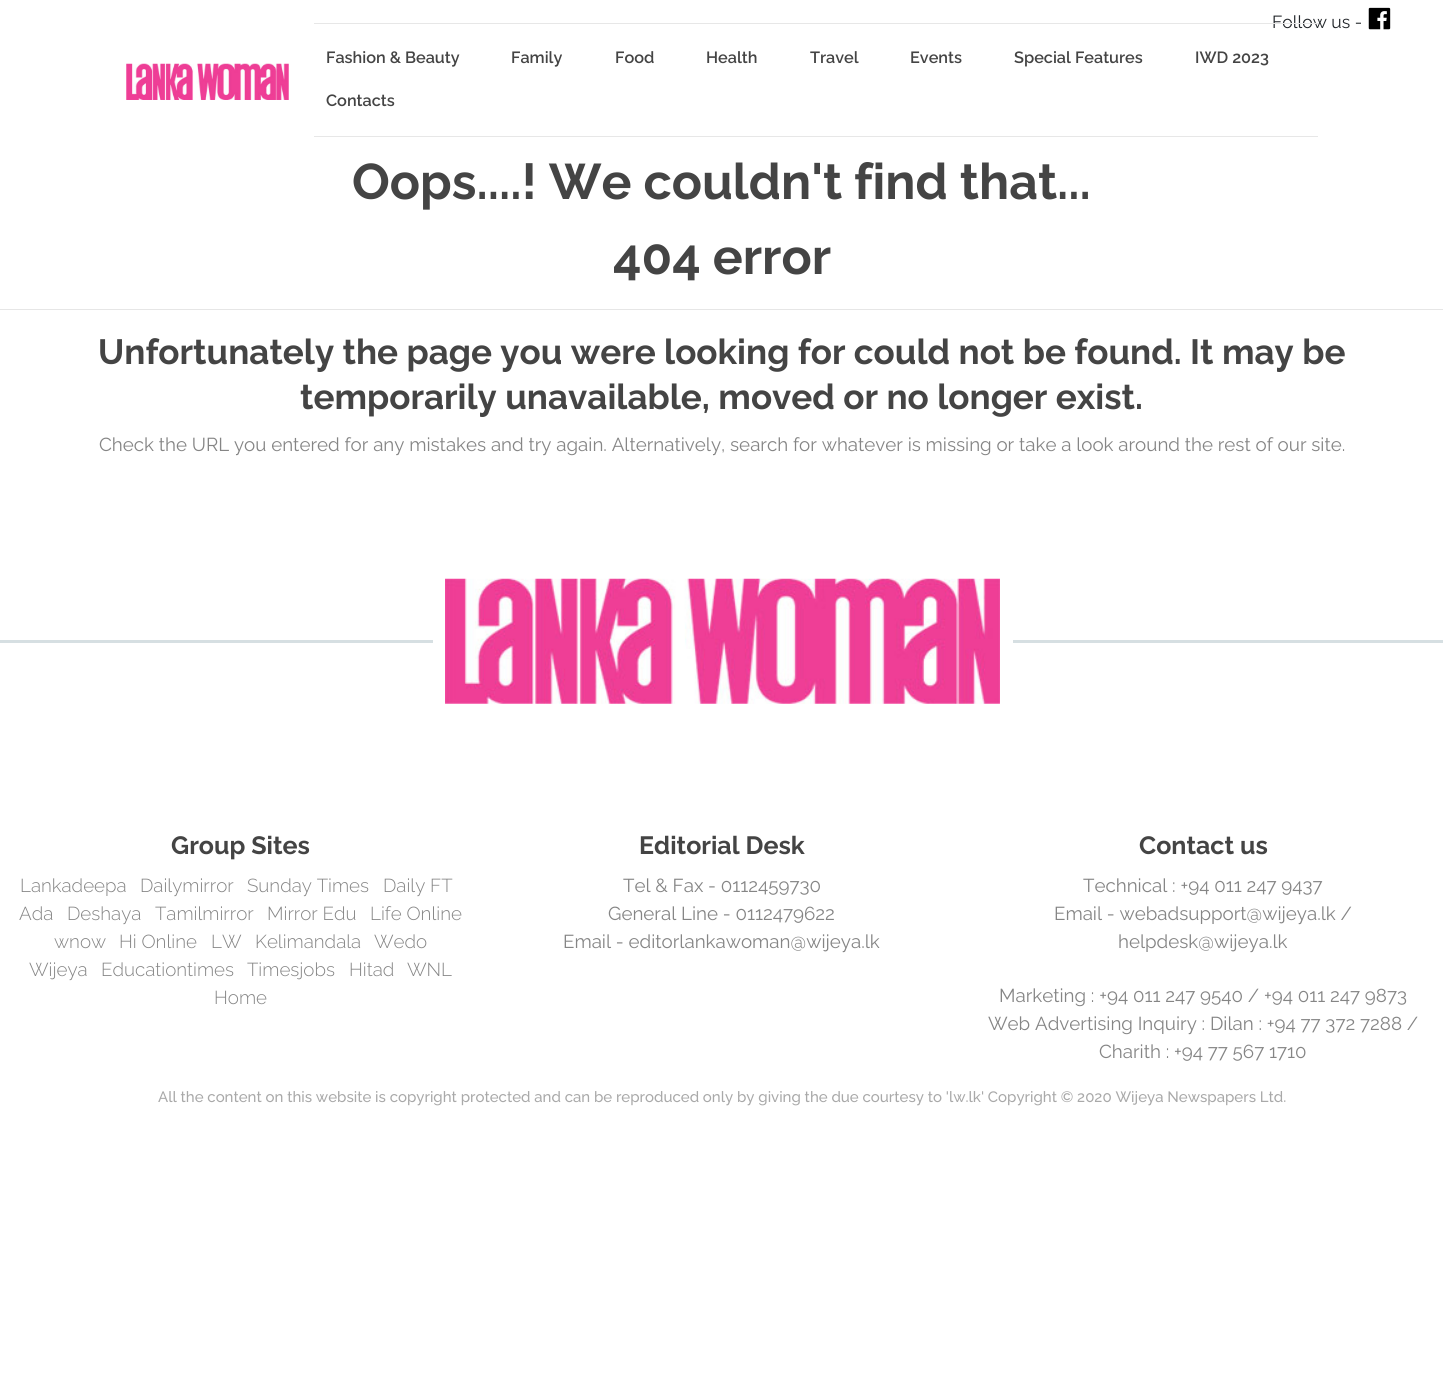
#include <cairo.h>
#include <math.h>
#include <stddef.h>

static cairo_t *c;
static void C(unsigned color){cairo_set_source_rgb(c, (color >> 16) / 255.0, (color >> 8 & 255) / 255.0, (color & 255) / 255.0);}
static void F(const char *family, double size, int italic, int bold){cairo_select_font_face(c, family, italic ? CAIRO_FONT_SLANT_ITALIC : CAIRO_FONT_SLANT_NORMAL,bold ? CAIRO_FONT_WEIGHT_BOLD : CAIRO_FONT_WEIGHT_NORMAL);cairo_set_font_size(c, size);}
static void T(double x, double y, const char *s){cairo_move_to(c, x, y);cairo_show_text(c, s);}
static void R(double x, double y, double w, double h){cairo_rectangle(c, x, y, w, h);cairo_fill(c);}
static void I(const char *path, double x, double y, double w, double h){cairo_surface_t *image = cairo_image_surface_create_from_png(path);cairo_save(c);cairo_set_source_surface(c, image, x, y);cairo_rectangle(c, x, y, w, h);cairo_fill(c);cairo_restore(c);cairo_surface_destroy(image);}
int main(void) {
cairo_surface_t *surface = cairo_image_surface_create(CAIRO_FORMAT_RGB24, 1443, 1399);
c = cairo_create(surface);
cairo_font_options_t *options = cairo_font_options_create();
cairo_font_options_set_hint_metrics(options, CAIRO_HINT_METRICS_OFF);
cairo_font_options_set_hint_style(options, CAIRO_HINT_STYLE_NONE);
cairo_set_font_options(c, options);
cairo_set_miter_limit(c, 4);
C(0xffffff);
cairo_paint(c);
F("Raleway",17.5,0,0);
C(0x212529);
T(1272,28,"Follow us -");
I("1.png",1368,7,23,23);
I("2.png",126,63,163,37);
C(0xe7e7e7);
R(314,23,1004,1);
R(314,136,1004,1);
F("Raleway SemiBold",16.25,0,0);
C(0x444444);
T(326,63,"Fashion & Beauty");
T(511,63,"Family");
T(615,63,"Food");
T(706,63,"Health");
T(810,63,"Travel");
T(910,63,"Events");
T(1014,63,"Special Features");
T(1195,63,"IWD 2023");
T(326,106,"Contacts");
F("Raleway",50,0,1);
T(352,199,"Oops....! We couldn't find that...");
T(613,274,"404 error");
C(0xe6e6e6);
R(0,309,1443,1);
F("Raleway",35,0,1);
C(0x444444);
T(98,364,"Unfortunately the page you were looking for could not be found. It may be");
T(300,409,"temporarily unavailable, moved or no longer exist.");
F("Raleway",18.75,0,0);
C(0x858585);
T(99,451,"Check the URL you entered for any mistakes and try again. Alternatively, search for whatever is missing or take a look around the rest of our site.");
C(0xd6dfe2);
R(0,640,1443,3);
C(0xffffff);
R(433,640,580,3);
I("3.png",445,578,555,126);
F("Raleway",25,0,1);
C(0x444444);
T(171,854,"Group Sites");
F("Raleway Light",18.75,0,0);
C(0x858585);
T(20,892,"Lankadeepa");
T(140,892,"Dailymirror");
T(247,892,"Sunday Times");
T(383,892,"Daily FT");
T(19,920,"Ada");
T(67,920,"Deshaya");
T(155,920,"Tamilmirror");
T(267,920,"Mirror Edu");
T(370,920,"Life Online");
T(54,948,"wnow");
T(119,948,"Hi Online");
T(211,948,"LW");
T(255,948,"Kelimandala");
T(374,948,"Wedo");
T(29,976,"Wijeya");
T(101,976,"Educationtimes");
T(247,976,"Timesjobs");
T(349,976,"Hitad");
T(407,976,"WNL");
T(214,1004,"Home");
F("Raleway",25,0,1);
C(0x444444);
T(639,854,"Editorial Desk");
F("Raleway",18.75,0,0);
C(0x858585);
T(623,892,"Tel & Fax - 0112459730");
T(608,920,"General Line - 0112479622");
T(563,948,"Email - editorlankawoman@wijeya.lk");
F("Raleway",25,0,1);
C(0x444444);
T(1139,854,"Contact us");
F("Raleway",18.75,0,0);
C(0x858585);
T(1083,892,"Technical : +94 011 247 9437");
T(1054,920,"Email - webadsupport@wijeya.lk /");
T(1118,948,"helpdesk@wijeya.lk");
T(999,1002,"Marketing : +94 011 247 9540 / +94 011 247 9873");
T(988,1030,"Web Advertising Inquiry : Dilan : +94 77 372 7288 /");
T(1099,1058,"Charith : +94 77 567 1710");
F("Raleway Medium",15,0,0);
C(0xa9a9a9);
T(158,1102,"All the content on this website is copyright protected and can be reproduced only by giving the due courtesy to 'lw.lk' Copyright © 2020 Wijeya Newspapers Ltd.");
cairo_surface_write_to_png(surface, "o.png");
cairo_font_options_destroy(options);
cairo_destroy(c);
cairo_surface_destroy(surface);
return 0;
}
